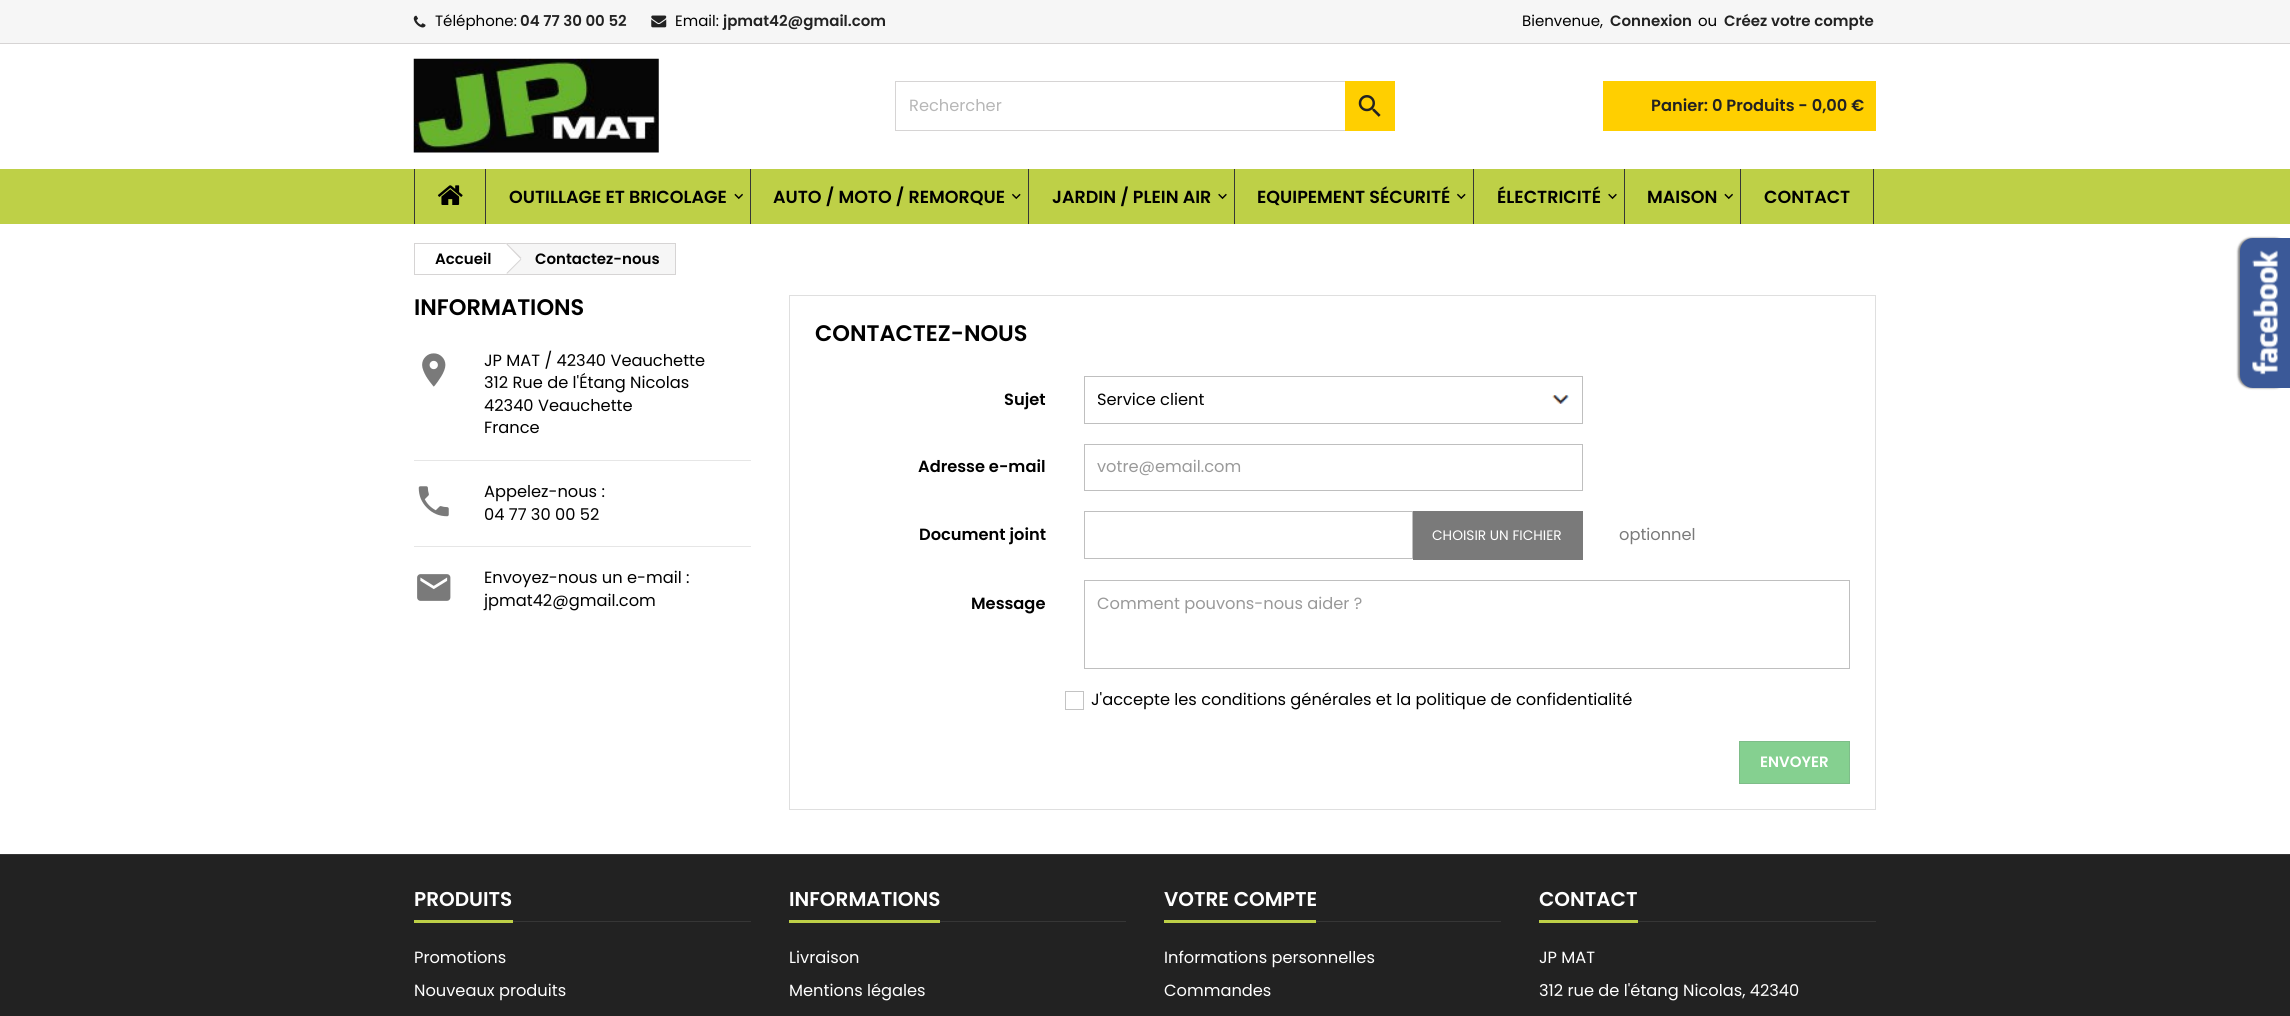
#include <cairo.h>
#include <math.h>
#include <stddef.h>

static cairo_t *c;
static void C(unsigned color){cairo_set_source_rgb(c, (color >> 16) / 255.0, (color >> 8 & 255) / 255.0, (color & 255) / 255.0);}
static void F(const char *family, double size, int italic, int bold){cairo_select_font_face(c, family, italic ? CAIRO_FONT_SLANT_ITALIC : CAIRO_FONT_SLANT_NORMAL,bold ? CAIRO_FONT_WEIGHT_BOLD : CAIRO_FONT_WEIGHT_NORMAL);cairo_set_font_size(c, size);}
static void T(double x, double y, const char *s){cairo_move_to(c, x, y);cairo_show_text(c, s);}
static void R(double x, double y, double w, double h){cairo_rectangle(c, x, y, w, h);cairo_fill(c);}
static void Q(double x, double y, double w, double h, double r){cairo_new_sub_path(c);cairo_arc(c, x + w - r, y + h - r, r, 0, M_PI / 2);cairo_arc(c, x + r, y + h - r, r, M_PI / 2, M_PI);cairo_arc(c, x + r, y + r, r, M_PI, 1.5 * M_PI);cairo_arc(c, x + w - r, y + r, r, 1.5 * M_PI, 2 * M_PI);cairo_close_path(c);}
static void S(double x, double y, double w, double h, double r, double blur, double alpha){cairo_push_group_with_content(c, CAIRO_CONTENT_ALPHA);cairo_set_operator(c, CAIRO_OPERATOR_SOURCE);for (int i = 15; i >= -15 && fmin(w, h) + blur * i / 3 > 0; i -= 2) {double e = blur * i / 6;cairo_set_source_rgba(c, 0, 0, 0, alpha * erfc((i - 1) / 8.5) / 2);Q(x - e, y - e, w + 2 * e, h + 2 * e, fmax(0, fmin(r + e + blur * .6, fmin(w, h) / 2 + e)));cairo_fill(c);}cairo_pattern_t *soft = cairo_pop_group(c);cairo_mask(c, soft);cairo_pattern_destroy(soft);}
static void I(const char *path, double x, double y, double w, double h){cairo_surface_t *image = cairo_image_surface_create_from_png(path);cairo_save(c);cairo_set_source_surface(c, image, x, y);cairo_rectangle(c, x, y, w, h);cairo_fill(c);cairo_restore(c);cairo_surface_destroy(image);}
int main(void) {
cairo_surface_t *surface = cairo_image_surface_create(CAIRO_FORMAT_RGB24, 2290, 1016);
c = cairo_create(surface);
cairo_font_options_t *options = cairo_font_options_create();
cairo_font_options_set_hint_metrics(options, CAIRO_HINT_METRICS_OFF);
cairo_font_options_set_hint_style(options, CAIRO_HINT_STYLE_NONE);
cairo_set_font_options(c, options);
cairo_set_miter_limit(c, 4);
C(0xffffff);
cairo_paint(c);
C(0xf6f6f6);
R(0,0,2290,43);
C(0xd6d4d4);
R(0,43,2290,1);
I("1.png",413,15,13,13);
F("Poppins",15,0,0);
C(0x000000);
T(435,26,"Téléphone:");
F("Poppins SemiBold",15,0,0);
C(0x222222);
T(520,26,"04 77 30 00 52");
I("2.png",651,15,16,13);
F("Poppins",15,0,0);
C(0x000000);
T(675,26,"Email:");
F("Poppins SemiBold",15,0,0);
C(0x222222);
T(723,26,"jpmat42@gmail.com");
F("Poppins",15,0,0);
C(0x000000);
T(1522,26,"Bienvenue,");
F("Poppins SemiBold",15,0,0);
C(0x222222);
T(1610,26,"Connexion");
F("Poppins",15,0,0);
C(0x000000);
T(1698,26,"ou");
F("Poppins SemiBold",15,0,0);
C(0x222222);
T(1724,26,"Créez votre compte");
I("3.png",413,58,246,95);
cairo_rectangle(c,895.5,81.5,499,49);
C(0xd6d4d4);
cairo_set_line_width(c,1);
cairo_stroke(c);
F("Poppins",16.25,0,0);
C(0xb7b7b7);
T(909,111,"Rechercher");
C(0xffcf00);
R(1345,81,50,50);
I("4.png",1358,95,23,22);
R(1603,81,273,50);
F("Poppins SemiBold",16.25,0,0);
C(0x222222);
T(1651,111,"Panier: 0 Produits - 0,00 €");
C(0xbed047);
R(0,169,2290,55);
C(0x363636);
R(414,169,1,55);
I("5.png",437,185,26,20);
R(485,169,1,55);
F("Poppins SemiBold",17.5,0,0);
C(0x000000);
T(509,203,"OUTILLAGE ET BRICOLAGE");
I("6.png",734,193,9,7);
C(0x363636);
R(750,169,1,55);
C(0x000000);
T(773,203,"AUTO / MOTO / REMORQUE");
I("7.png",1012,193,9,7);
C(0x363636);
R(1028,169,1,55);
C(0x000000);
T(1052,203,"JARDIN / PLEIN AIR");
I("8.png",1218,193,9,7);
C(0x363636);
R(1234,169,1,55);
C(0x000000);
T(1257,203,"EQUIPEMENT SÉCURITÉ");
I("7.png",1457,193,9,7);
C(0x363636);
R(1473,169,1,55);
C(0x000000);
T(1497,203,"ÉLECTRICITÉ");
I("8.png",1608,193,9,7);
C(0x363636);
R(1624,169,1,55);
C(0x000000);
T(1647,203,"MAISON");
I("6.png",1724,193,9,7);
C(0x363636);
R(1873,169,1,55);
R(1740,169,1,55);
C(0x000000);
T(1764,203,"CONTACT");
cairo_rectangle(c,414.5,243.5,261,31);
C(0xd6d4d4);
cairo_stroke(c);
F("Poppins SemiBold",15,0,0);
C(0x000000);
T(435,264,"Accueil");
C(0xf6f6f6);
R(508,244,167,30);
C(0xffffff);
cairo_new_path(c);
cairo_move_to(c,508,244.5);
cairo_line_to(c,520.5,257);
cairo_curve_to(c,521.5,258,521.5,259.5,520.5,260.5);
cairo_line_to(c,508,273);
cairo_curve_to(c,507,274,505.5,274,504.5,273);
cairo_line_to(c,492,260.5);
cairo_curve_to(c,491,259.5,491,258,492,257);
cairo_line_to(c,504.5,244.5);
cairo_curve_to(c,505.5,243.5,507,243.5,508,244.5);
cairo_close_path(c);
cairo_fill(c);
C(0xd6d4d4);
cairo_new_path(c);
cairo_move_to(c,507,243.5);
cairo_line_to(c,521.5,258);
cairo_line_to(c,520.5,259);
cairo_line_to(c,506.5,244.5);
cairo_close_path(c);
cairo_move_to(c,520.5,259);
cairo_line_to(c,521.5,259.5);
cairo_line_to(c,507,274);
cairo_line_to(c,506.5,273);
cairo_close_path(c);
cairo_fill(c);
C(0x000000);
T(535,264,"Contactez-nous");
F("Poppins SemiBold",22.5,0,0);
T(414,315,"INFORMATIONS");
I("9.png",422,353,24,34);
F("Poppins",16.25,0,0);
T(484,366,"JP MAT / 42340 Veauchette");
T(484,388,"312 Rue de l'Étang Nicolas");
T(484,411,"42340 Veauchette");
T(484,433,"France");
C(0xe6e6e6);
R(414,460,337,1);
I("10.png",418,486,31,31);
C(0x000000);
T(484,497,"Appelez-nous :");
T(484,520,"04 77 30 00 52");
C(0xe6e6e6);
R(414,546,337,1);
I("11.png",417,574,34,27);
C(0x000000);
T(484,583,"Envoyez-nous un e-mail :");
T(484,606,"jpmat42@gmail.com");
cairo_rectangle(c,789.5,295.5,1086,514);
C(0xdfdfdf);
cairo_stroke(c);
F("Poppins SemiBold",22.5,0,0);
C(0x000000);
T(815,341,"CONTACTEZ-NOUS");
F("Poppins SemiBold",16.25,0,0);
T(1004,405,"Sujet");
I("12.png",1552,395,17,9);
cairo_rectangle(c,1084.5,376.5,498,47);
C(0xbfbfbf);
cairo_stroke(c);
F("Poppins",16.25,0,0);
C(0x000000);
T(1097,405,"Service client");
F("Poppins SemiBold",16.25,0,0);
T(918,472,"Adresse e-mail");
cairo_rectangle(c,1084.5,444.5,498,46);
C(0xbfbfbf);
cairo_stroke(c);
F("Poppins",16.25,0,0);
C(0x999999);
T(1097,472,"votre@email.com");
F("Poppins SemiBold",16.25,0,0);
C(0x000000);
T(919,540,"Document joint");
cairo_rectangle(c,1084.5,511.5,328,47);
C(0xbfbfbf);
cairo_stroke(c);
C(0x7a7a7a);
R(1413,511,170,49);
F("Poppins",13.75,0,0);
C(0xffffff);
T(1432,540,"CHOISIR UN FICHIER");
F("Poppins",16.25,0,0);
C(0x7a7a7a);
T(1619,540,"optionnel");
F("Poppins SemiBold",16.25,0,0);
C(0x000000);
T(971,609,"Message");
cairo_rectangle(c,1084.5,580.5,765,88);
C(0xbfbfbf);
cairo_stroke(c);
F("Poppins",16.25,0,0);
C(0x999999);
T(1097,609,"Comment pouvons-nous aider ?");
cairo_rectangle(c,1065.5,691.5,18,18);
C(0xc3c3c3);
cairo_stroke(c);
C(0x000000);
T(1091,705,"J'accepte les conditions générales et la politique de confidentialité");
C(0x85d090);
cairo_rectangle(c,1739.5,741.5,110,42);
cairo_fill_preserve(c);
C(0x7ebd89);
cairo_stroke(c);
F("Poppins SemiBold",15,0,0);
C(0xffffff);
T(1760,767,"ENVOYER");
C(0x000000);
S(2238,238,50,150,13,1,.5);
C(0x3b5998);
cairo_new_path(c);
cairo_move_to(c,2253,238);
cairo_line_to(c,2290,238);
cairo_line_to(c,2290,388);
cairo_line_to(c,2253,388);
cairo_curve_to(c,2246,388,2240,382,2240,375);
cairo_line_to(c,2240,251);
cairo_curve_to(c,2240,244,2246,238,2253,238);
cairo_close_path(c);
cairo_fill(c);
I("13.png",2252,250,26,125);
C(0x222222);
R(0,855,2290,161);
C(0x363636);
R(0,854,2290,1);
R(513,921,238,1);
C(0xbed047);
R(414,920,99,3);
F("Poppins SemiBold",20,0,0);
C(0xffffff);
T(414,906,"PRODUITS");
F("Poppins",16.25,0,0);
T(414,963,"Promotions");
T(414,996,"Nouveaux produits");
C(0x363636);
R(940,921,186,1);
C(0xbed047);
R(789,920,151,3);
F("Poppins SemiBold",20,0,0);
C(0xffffff);
T(789,906,"INFORMATIONS");
F("Poppins",16.25,0,0);
T(789,963,"Livraison");
T(789,996,"Mentions légales");
C(0x363636);
R(1316,921,185,1);
C(0xbed047);
R(1164,920,152,3);
F("Poppins SemiBold",20,0,0);
C(0xffffff);
T(1164,906,"VOTRE COMPTE");
F("Poppins",16.25,0,0);
T(1164,963,"Informations personnelles");
T(1164,996,"Commandes");
C(0x363636);
R(1638,921,238,1);
C(0xbed047);
R(1539,920,99,3);
F("Poppins SemiBold",20,0,0);
C(0xffffff);
T(1539,906,"CONTACT");
F("Poppins",16.25,0,0);
T(1539,963,"JP MAT");
T(1539,996,"312 rue de l'étang Nicolas, 42340");
cairo_surface_write_to_png(surface, "o.png");
cairo_font_options_destroy(options);
cairo_destroy(c);
cairo_surface_destroy(surface);
return 0;
}
